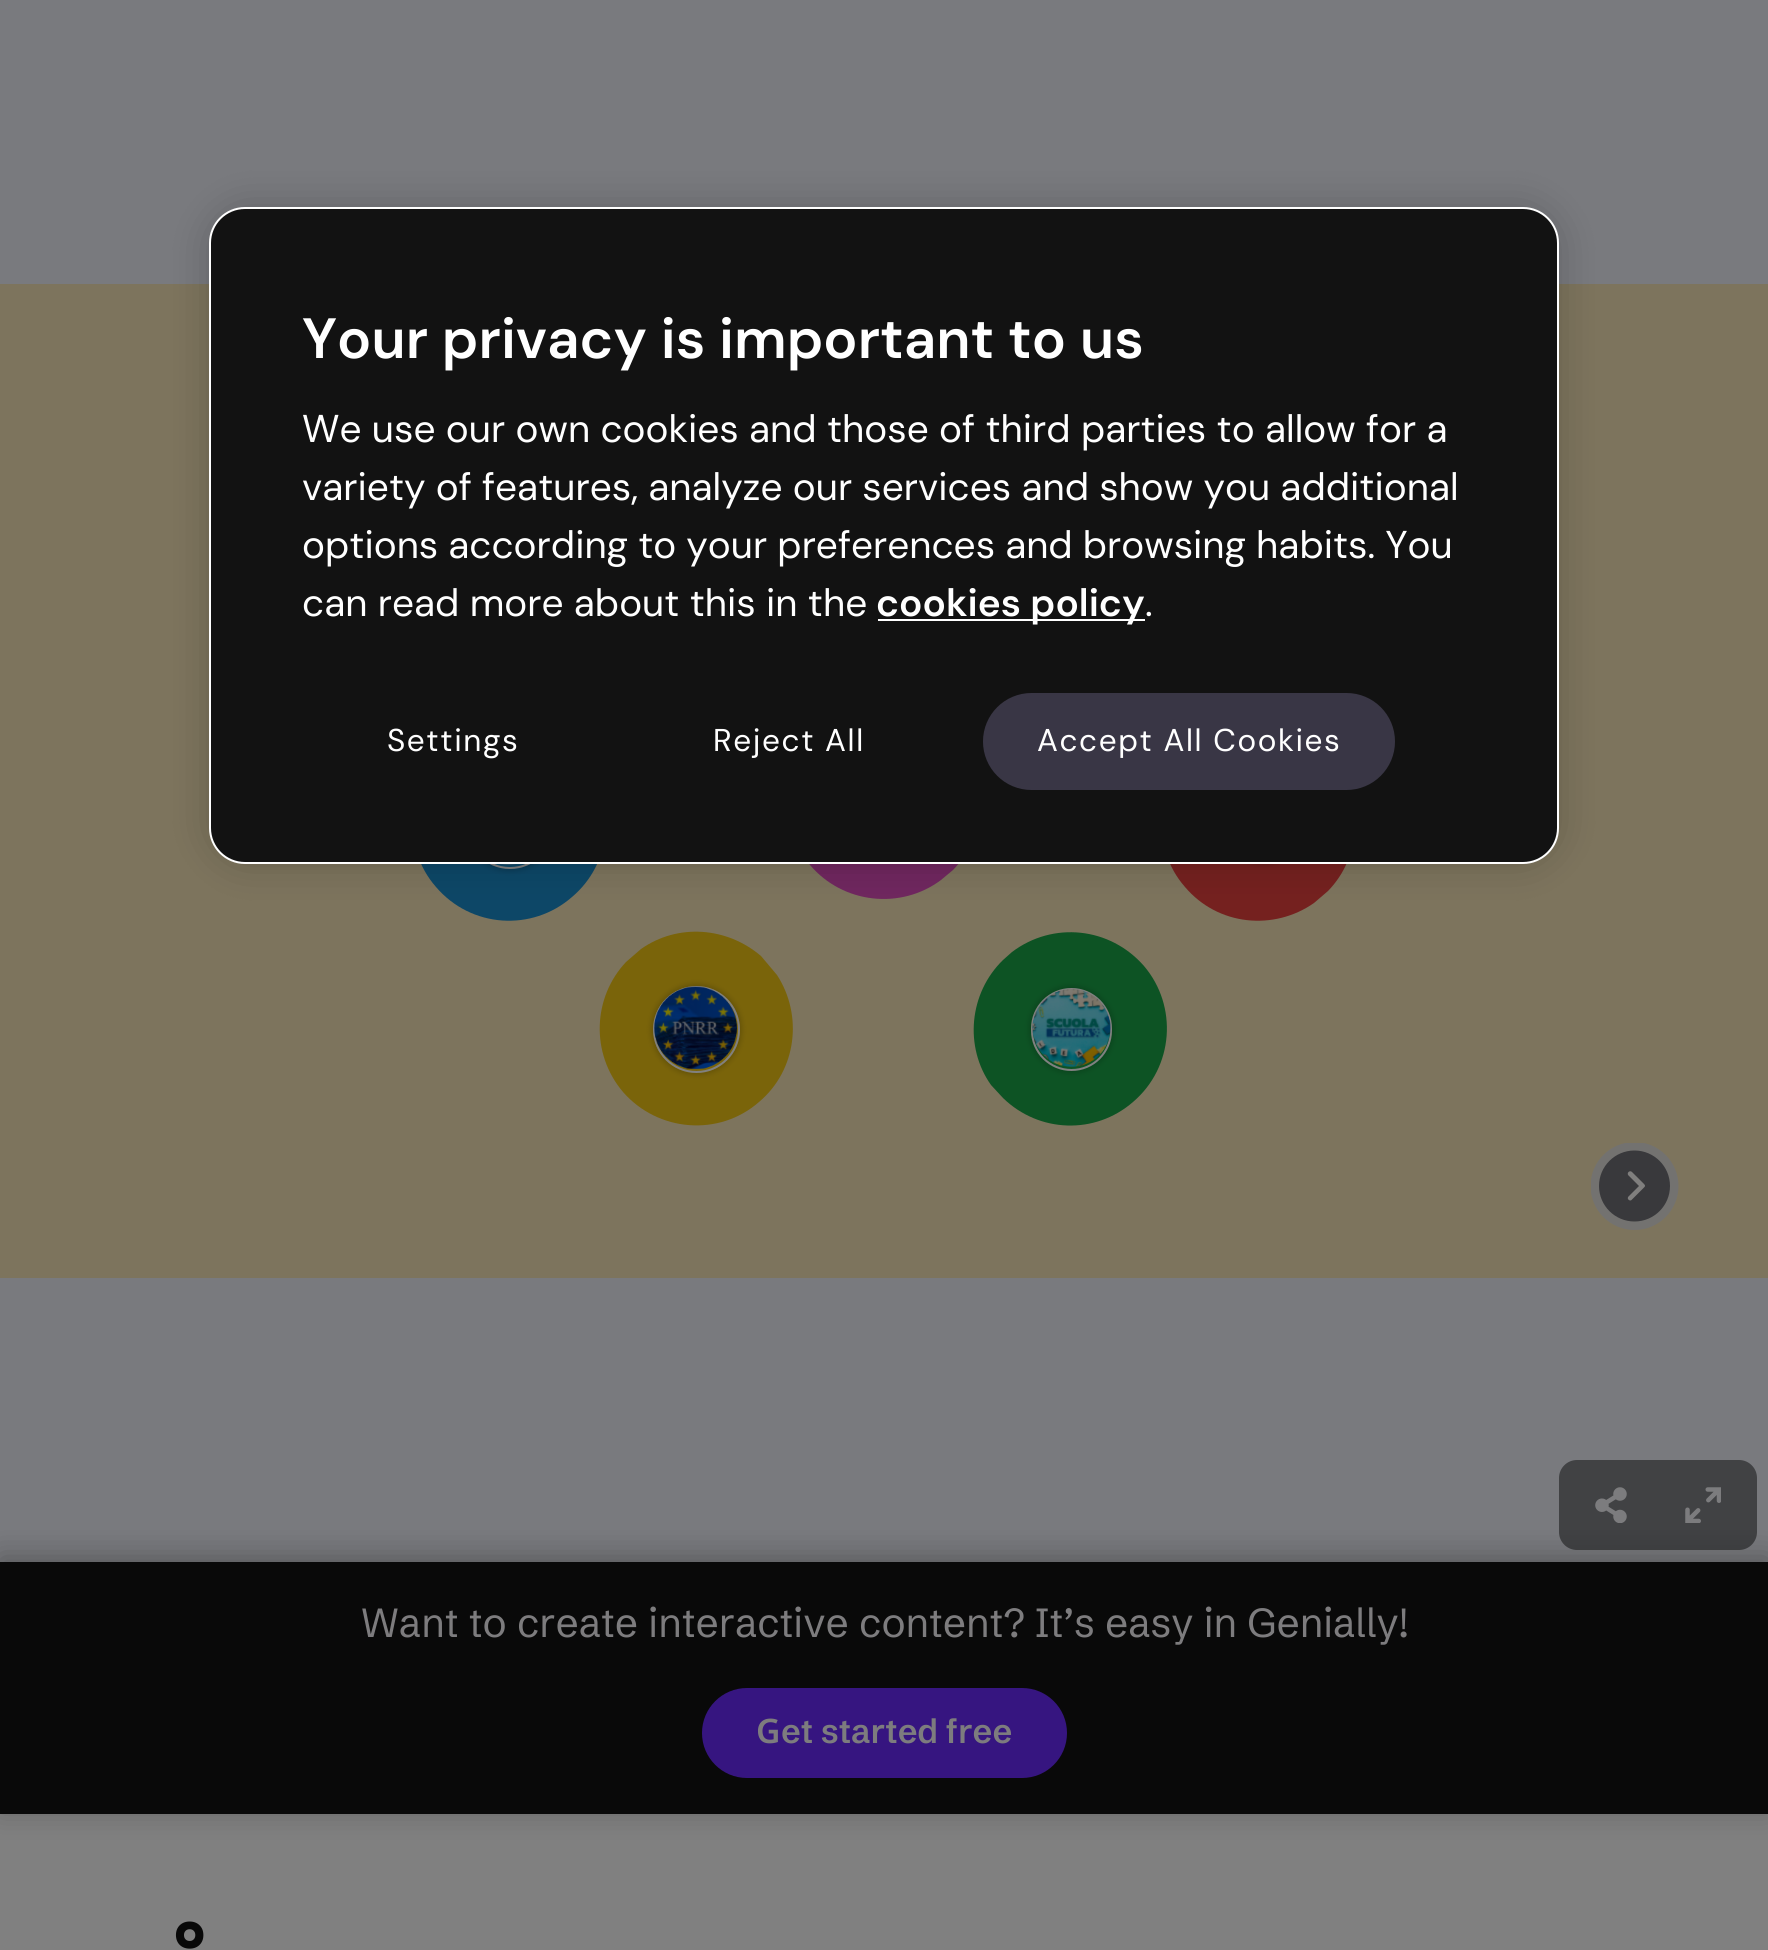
#include <cairo.h>
#include <math.h>
#include <stddef.h>

static cairo_t *c;
static void C(unsigned color){cairo_set_source_rgb(c, (color >> 16) / 255.0, (color >> 8 & 255) / 255.0, (color & 255) / 255.0);}
static void F(const char *family, double size, int italic, int bold){cairo_select_font_face(c, family, italic ? CAIRO_FONT_SLANT_ITALIC : CAIRO_FONT_SLANT_NORMAL,bold ? CAIRO_FONT_WEIGHT_BOLD : CAIRO_FONT_WEIGHT_NORMAL);cairo_set_font_size(c, size);}
static void T(double x, double y, const char *s){cairo_move_to(c, x, y);cairo_show_text(c, s);}
static void L(double x, double y, const char *s, double letter, double word){cairo_move_to(c, x, y);while (*s) {char ch[5] = {0};int n = 0;do ch[n++] = *s++; while ((*s & 0xC0) == 0x80);cairo_show_text(c, ch);cairo_rel_move_to(c, letter + word * (*ch == ' '), 0);}}
static void R(double x, double y, double w, double h){cairo_rectangle(c, x, y, w, h);cairo_fill(c);}
static void Q(double x, double y, double w, double h, double r){cairo_new_sub_path(c);cairo_arc(c, x + w - r, y + h - r, r, 0, M_PI / 2);cairo_arc(c, x + r, y + h - r, r, M_PI / 2, M_PI);cairo_arc(c, x + r, y + r, r, M_PI, 1.5 * M_PI);cairo_arc(c, x + w - r, y + r, r, 1.5 * M_PI, 2 * M_PI);cairo_close_path(c);}
static void S(double x, double y, double w, double h, double r, double blur, double alpha){cairo_push_group_with_content(c, CAIRO_CONTENT_ALPHA);cairo_set_operator(c, CAIRO_OPERATOR_SOURCE);for (int i = 15; i >= -15 && fmin(w, h) + blur * i / 3 > 0; i -= 2) {double e = blur * i / 6;cairo_set_source_rgba(c, 0, 0, 0, alpha * erfc((i - 1) / 8.5) / 2);Q(x - e, y - e, w + 2 * e, h + 2 * e, fmax(0, fmin(r + e + blur * .6, fmin(w, h) / 2 + e)));cairo_fill(c);}cairo_pattern_t *soft = cairo_pop_group(c);cairo_mask(c, soft);cairo_pattern_destroy(soft);}
static void I(const char *path, double x, double y, double w, double h){cairo_surface_t *image = cairo_image_surface_create_from_png(path);cairo_save(c);cairo_set_source_surface(c, image, x, y);cairo_rectangle(c, x, y, w, h);cairo_fill(c);cairo_restore(c);cairo_surface_destroy(image);}
int main(void) {
cairo_surface_t *surface = cairo_image_surface_create(CAIRO_FORMAT_RGB24, 1768, 1950);
c = cairo_create(surface);
cairo_font_options_t *options = cairo_font_options_create();
cairo_font_options_set_hint_metrics(options, CAIRO_HINT_METRICS_OFF);
cairo_font_options_set_hint_style(options, CAIRO_HINT_STYLE_NONE);
cairo_set_font_options(c, options);
cairo_set_miter_limit(c, 4);
C(0x808080);
cairo_paint(c);
C(0x797a7e);
R(0,0,1768,1562);
C(0x7d745d);
R(0,284,1768,994);
C(0x0d4767);
cairo_new_path(c);
cairo_move_to(c,572,897);
cairo_curve_to(c,532,932,471,928,436,887);
cairo_curve_to(c,401,847,406,786,446,751);
cairo_curve_to(c,485,718,541,721,577,754);
cairo_line_to(c,589,768);
cairo_curve_to(c,616,808,611,864,572,897);
cairo_close_path(c);
cairo_fill(c);
C(0x70275f);
cairo_new_path(c);
cairo_move_to(c,951,733);
cairo_line_to(c,963,746);
cairo_curve_to(c,990,785,985,837,953,870);
cairo_line_to(c,941,880);
cairo_curve_to(c,901,910,843,904,810,865);
cairo_curve_to(c,776,825,780,764,821,729);
cairo_curve_to(c,859,696,915,699,951,733);
cairo_close_path(c);
cairo_fill(c);
C(0x75211f);
cairo_new_path(c);
cairo_move_to(c,1327,756);
cairo_line_to(c,1336,766);
cairo_curve_to(c,1364,804,1361,857,1328,891);
cairo_line_to(c,1314,903);
cairo_curve_to(c,1274,931,1218,926,1185,887);
cairo_curve_to(c,1150,847,1155,786,1195,751);
cairo_curve_to(c,1234,717,1292,721,1327,756);
cairo_close_path(c);
cairo_fill(c);
cairo_save(c);
cairo_set_fill_rule(c,CAIRO_FILL_RULE_EVEN_ODD);
cairo_new_path(c);
cairo_move_to(c,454,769);
cairo_line_to(c,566,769);
cairo_line_to(c,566,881);
cairo_line_to(c,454,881);
cairo_close_path(c);
cairo_move_to(c,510,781);
cairo_curve_to(c,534.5,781,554,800.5,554,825);
cairo_curve_to(c,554,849.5,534.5,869,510,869);
cairo_curve_to(c,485.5,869,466,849.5,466,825);
cairo_curve_to(c,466,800.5,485.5,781,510,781);
cairo_close_path(c);
cairo_clip(c);
C(0x000000);
S(466,781,88,88,44,3.5,.3);
cairo_restore(c);
cairo_arc(c,510,825,43,0,2 * M_PI);
C(0x808080);
cairo_stroke(c);
I("1.png",501,864,15,1);
C(0x000000);
S(209,207,1350,657,36,20,.2);
S(1226,788,75,74,37,3.5,.3);
C(0x121212);
Q(210,208,1348,655,35);
cairo_fill_preserve(c);
C(0xffffff);
cairo_stroke(c);
F("DM Sans SemiBold",56.75,0,0);
T(302,358,"Your privacy is important to us");
F("DM Sans",38.75,0,0);
T(302,442,"We use our own cookies and those of third parties to allow for a");
L(302,500,"variety of features, analyze our services and show you additional",0,-.1);
L(302,558,"options according to your preferences and browsing habits. You",0,-.25);
T(302,616,"can read more about this in the");
R(878,619,267,2);
F("DM Sans SemiBold",38.75,0,0);
T(876,616,"cookies policy");
F("DM Sans",38.75,0,0);
T(1145,616,".");
F("DM Sans",31.5,0,0);
L(387,751,"Settings",1.6,0);
L(713,751,"Reject All",1.6,0);
C(0x393645);
Q(982,692,414,99,49.5);
cairo_fill_preserve(c);
C(0x121212);
cairo_stroke(c);
C(0xffffff);
L(1037,751,"Accept All Cookies",1.6,0);
C(0x7a640a);
cairo_new_path(c);
cairo_move_to(c,759,1102);
cairo_curve_to(c,719,1137,658,1132,623,1092);
cairo_curve_to(c,590,1053,593,997,626,962);
cairo_line_to(c,641,949);
cairo_curve_to(c,678,923,727,927,761,956);
cairo_line_to(c,777,975);
cairo_curve_to(c,803,1015,797,1070,759,1102);
cairo_close_path(c);
cairo_fill(c);
C(0x0d5324);
cairo_new_path(c);
cairo_move_to(c,1133,1102);
cairo_curve_to(c,1095,1135,1039,1133,1003,1098);
cairo_line_to(c,991,1085);
cairo_curve_to(c,964,1047,969,993,1003,960);
cairo_line_to(c,1012,952);
cairo_curve_to(c,1053,921,1110,927,1144,966);
cairo_curve_to(c,1178,1006,1174,1067,1133,1102);
cairo_close_path(c);
cairo_fill(c);
cairo_save(c);
cairo_set_fill_rule(c,CAIRO_FILL_RULE_EVEN_ODD);
cairo_new_path(c);
cairo_move_to(c,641,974);
cairo_line_to(c,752,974);
cairo_line_to(c,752,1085);
cairo_line_to(c,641,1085);
cairo_close_path(c);
cairo_move_to(c,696.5,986);
cairo_curve_to(c,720.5,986,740,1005.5,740,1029.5);
cairo_curve_to(c,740,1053.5,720.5,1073,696.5,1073);
cairo_curve_to(c,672.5,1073,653,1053.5,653,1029.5);
cairo_curve_to(c,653,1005.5,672.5,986,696.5,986);
cairo_close_path(c);
cairo_clip(c);
C(0x000000);
S(653,986,87,87,43.5,3.5,.3);
cairo_restore(c);
cairo_arc(c,696.5,1029.5,42.5,0,2 * M_PI);
C(0x808080);
cairo_stroke(c);
I("2.png",654,986,83,83);
cairo_save(c);
cairo_set_fill_rule(c,CAIRO_FILL_RULE_EVEN_ODD);
cairo_new_path(c);
cairo_move_to(c,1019,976);
cairo_line_to(c,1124,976);
cairo_line_to(c,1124,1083);
cairo_line_to(c,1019,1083);
cairo_close_path(c);
cairo_move_to(c,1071.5,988);
cairo_curve_to(c,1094,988,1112,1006,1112,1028.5);
cairo_line_to(c,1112,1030.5);
cairo_curve_to(c,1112,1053,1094,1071,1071.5,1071);
cairo_curve_to(c,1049,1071,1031,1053,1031,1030.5);
cairo_line_to(c,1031,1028.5);
cairo_curve_to(c,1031,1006,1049,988,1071.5,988);
cairo_close_path(c);
cairo_clip(c);
C(0x000000);
S(1031,988,81,83,40.5,3.5,.3);
cairo_restore(c);
Q(1032,989,79,81,39.5);
cairo_stroke(c);
I("3.png",1032,989,79,78);
cairo_save(c);
cairo_rectangle(c,1591,1143,88,88);
cairo_clip(c);
C(0x737270);
cairo_arc(c,1634.5,1186,44,0,2 * M_PI);
cairo_fill(c);
cairo_restore(c);
C(0x39393c);
cairo_arc(c,1634.5,1186,35.5,0,2 * M_PI);
cairo_fill(c);
C(0x807f7e);
cairo_new_path(c);
cairo_move_to(c,1630.5,1200.5);
cairo_curve_to(c,1631,1200.5,1631.5,1200,1632,1199.5);
cairo_line_to(c,1644,1187.5);
cairo_curve_to(c,1644.5,1187,1645,1186.5,1645,1186);
cairo_curve_to(c,1645,1185,1644.5,1184.5,1644,1184);
cairo_line_to(c,1632,1172);
cairo_curve_to(c,1631,1171,1629.5,1171,1628.5,1172);
cairo_curve_to(c,1627.5,1173,1627.5,1174.5,1628.5,1175.5);
cairo_line_to(c,1639,1186);
cairo_line_to(c,1628.5,1196.5);
cairo_curve_to(c,1628,1197,1627.5,1198,1628,1199);
cairo_curve_to(c,1628.5,1200,1629.5,1200.5,1630.5,1200.5);
cairo_fill(c);
C(0x414244);
Q(1559,1460,198,90,18);
cairo_fill(c);
I("4.png",1595,1487,32,36);
I("5.png",1685,1487,36,36);
C(0x090909);
S(0,1557,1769,252,0,14.5,.3);
C(0x090909);
R(0,1562,1768,252);
F("Schibsted Grotesk",40.5,0,0);
C(0x7d7c7e);
T(361,1637,"Want to create interactive content? It’s easy in Genially!");
C(0x361580);
Q(702,1688,365,90,45);
cairo_fill(c);
F("Noto Sans SemiBold",33.75,0,0);
C(0x7d7c7e);
T(756,1743,"G");
F("Schibsted Grotesk SemiBold",33.75,0,0);
T(781,1743,"et started free");
F("Schibsted Grotesk",72,0,1);
C(0x090909);
T(173,1972,"°");
cairo_surface_write_to_png(surface, "o.png");
cairo_font_options_destroy(options);
cairo_destroy(c);
cairo_surface_destroy(surface);
return 0;
}
